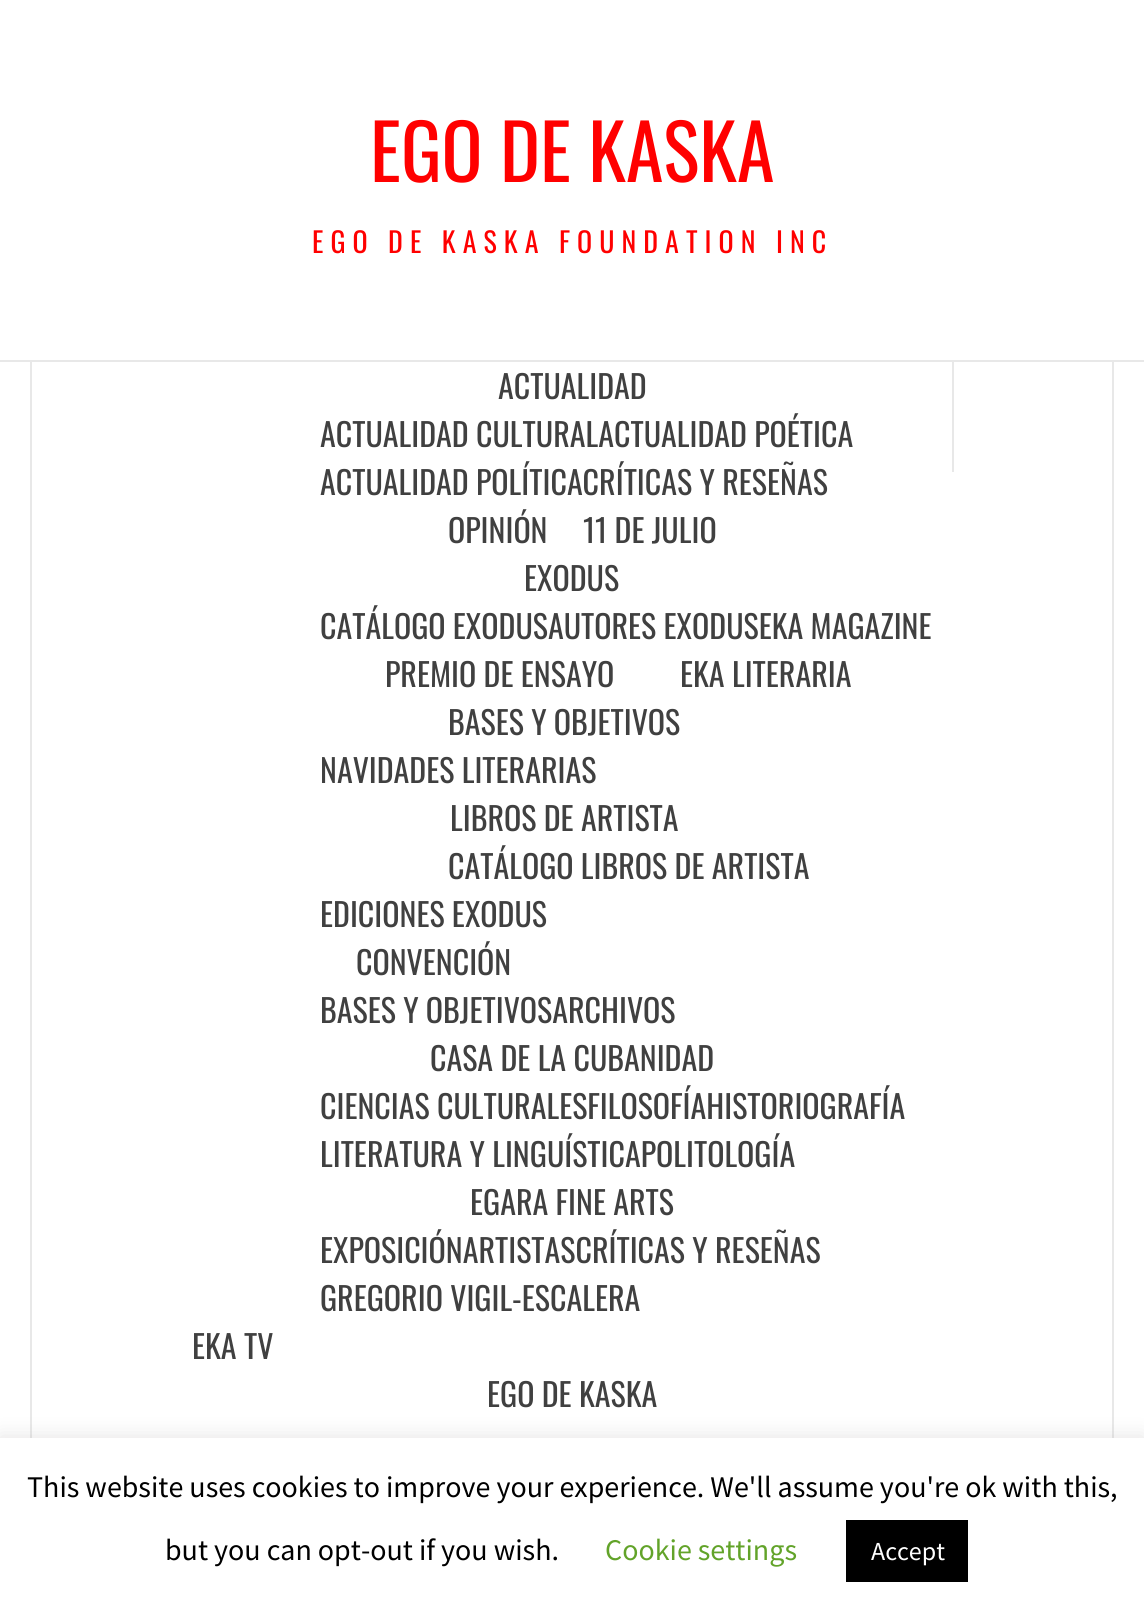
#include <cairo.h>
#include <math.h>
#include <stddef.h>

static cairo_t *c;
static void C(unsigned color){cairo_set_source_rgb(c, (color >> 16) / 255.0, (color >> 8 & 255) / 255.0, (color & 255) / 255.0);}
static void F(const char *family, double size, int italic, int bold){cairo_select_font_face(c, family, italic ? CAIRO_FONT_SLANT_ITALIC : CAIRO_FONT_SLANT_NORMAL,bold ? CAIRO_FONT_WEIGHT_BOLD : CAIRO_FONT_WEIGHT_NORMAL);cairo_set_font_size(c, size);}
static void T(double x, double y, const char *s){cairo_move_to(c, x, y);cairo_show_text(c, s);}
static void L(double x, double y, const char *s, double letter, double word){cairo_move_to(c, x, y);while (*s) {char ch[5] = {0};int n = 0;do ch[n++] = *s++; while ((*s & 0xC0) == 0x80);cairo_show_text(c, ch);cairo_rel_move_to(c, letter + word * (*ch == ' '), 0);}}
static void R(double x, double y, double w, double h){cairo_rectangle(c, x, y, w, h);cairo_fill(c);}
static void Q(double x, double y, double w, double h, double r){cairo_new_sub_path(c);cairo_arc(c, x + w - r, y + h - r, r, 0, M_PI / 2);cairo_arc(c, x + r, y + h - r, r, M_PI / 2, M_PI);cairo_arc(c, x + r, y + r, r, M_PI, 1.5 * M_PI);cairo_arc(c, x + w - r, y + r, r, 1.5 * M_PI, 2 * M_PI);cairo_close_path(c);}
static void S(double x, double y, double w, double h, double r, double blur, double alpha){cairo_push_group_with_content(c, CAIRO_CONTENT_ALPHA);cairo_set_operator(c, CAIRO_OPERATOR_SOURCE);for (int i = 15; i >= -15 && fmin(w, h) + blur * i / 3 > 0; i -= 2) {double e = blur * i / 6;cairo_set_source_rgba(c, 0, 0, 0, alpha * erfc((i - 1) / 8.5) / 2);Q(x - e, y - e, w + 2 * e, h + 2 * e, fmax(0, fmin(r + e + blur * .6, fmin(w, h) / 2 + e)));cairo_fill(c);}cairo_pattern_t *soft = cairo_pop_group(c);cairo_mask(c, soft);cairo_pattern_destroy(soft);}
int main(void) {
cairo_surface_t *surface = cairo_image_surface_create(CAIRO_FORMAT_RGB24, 1144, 1616);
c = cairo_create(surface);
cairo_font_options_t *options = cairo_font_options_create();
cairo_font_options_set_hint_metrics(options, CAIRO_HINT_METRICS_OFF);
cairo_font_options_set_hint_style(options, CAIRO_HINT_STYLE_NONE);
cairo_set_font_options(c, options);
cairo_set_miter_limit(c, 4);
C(0xffffff);
cairo_paint(c);
F("Oswald",76,0,0);
C(0xff0000);
T(370,182,"EGO DE KASKA");
F("Oswald",28,0,0);
L(312,253,"EGO DE KASKA FOUNDATION INC",7.05,0);
C(0xe8e8e8);
R(0,360,1144,2);
R(1112,362,2,1076);
R(30,362,2,1076);
F("Oswald",32,0,0);
C(0x404040);
T(498,399,"ACTUALIDAD");
T(320,447,"ACTUALIDAD CULTURALACTUALIDAD POÉTICA");
T(320,495,"ACTUALIDAD POLÍTICACRÍTICAS Y RESEÑAS");
T(448,543,"OPINIÓN");
T(583,543,"11 DE JULIO");
T(524,591,"EXODUS");
T(320,639,"CATÁLOGO EXODUSAUTORES EXODUSEKA MAGAZINE");
T(385,687,"PREMIO DE ENSAYO");
T(448,735,"BASES Y OBJETIVOS");
T(680,687,"EKA LITERARIA");
T(320,783,"NAVIDADES LITERARIAS");
T(450,831,"LIBROS DE ARTISTA");
T(448,879,"CATÁLOGO LIBROS DE ARTISTA");
T(320,927,"EDICIONES EXODUS");
T(356,975,"CONVENCIÓN");
T(320,1023,"BASES Y OBJETIVOSARCHIVOS");
T(430,1071,"CASA DE LA CUBANIDAD");
T(320,1119,"CIENCIAS CULTURALESFILOSOFÍAHISTORIOGRAFÍA");
T(320,1167,"LITERATURA Y LINGUÍSTICAPOLITOLOGÍA");
T(470,1215,"EGARA FINE ARTS");
T(320,1263,"EXPOSICIÓNARTISTASCRÍTICAS Y RESEÑAS");
T(320,1311,"GREGORIO VIGIL-ESCALERA");
T(192,1359,"EKA TV");
T(487,1407,"EGO DE KASKA");
C(0xe8e8e8);
R(952,362,2,110);
C(0xacabab);
S(0,1436,1144,178,0,10,.3);
C(0xffffff);
R(0,1438,1144,178);
F("Source Sans Pro",30,0,0);
C(0x000000);
T(27,1497,"This website uses cookies to improve your experience. We'll assume you're ok with this,");
T(165,1560,"but you can opt-out if you wish.");
C(0x62a329);
T(605,1560,"Cookie settings");
C(0x000000);
R(846,1520,122,62);
F("Source Sans Pro",26,0,0);
C(0xffffff);
T(871,1560,"Accept");
cairo_surface_write_to_png(surface, "o.png");
cairo_font_options_destroy(options);
cairo_destroy(c);
cairo_surface_destroy(surface);
return 0;
}
